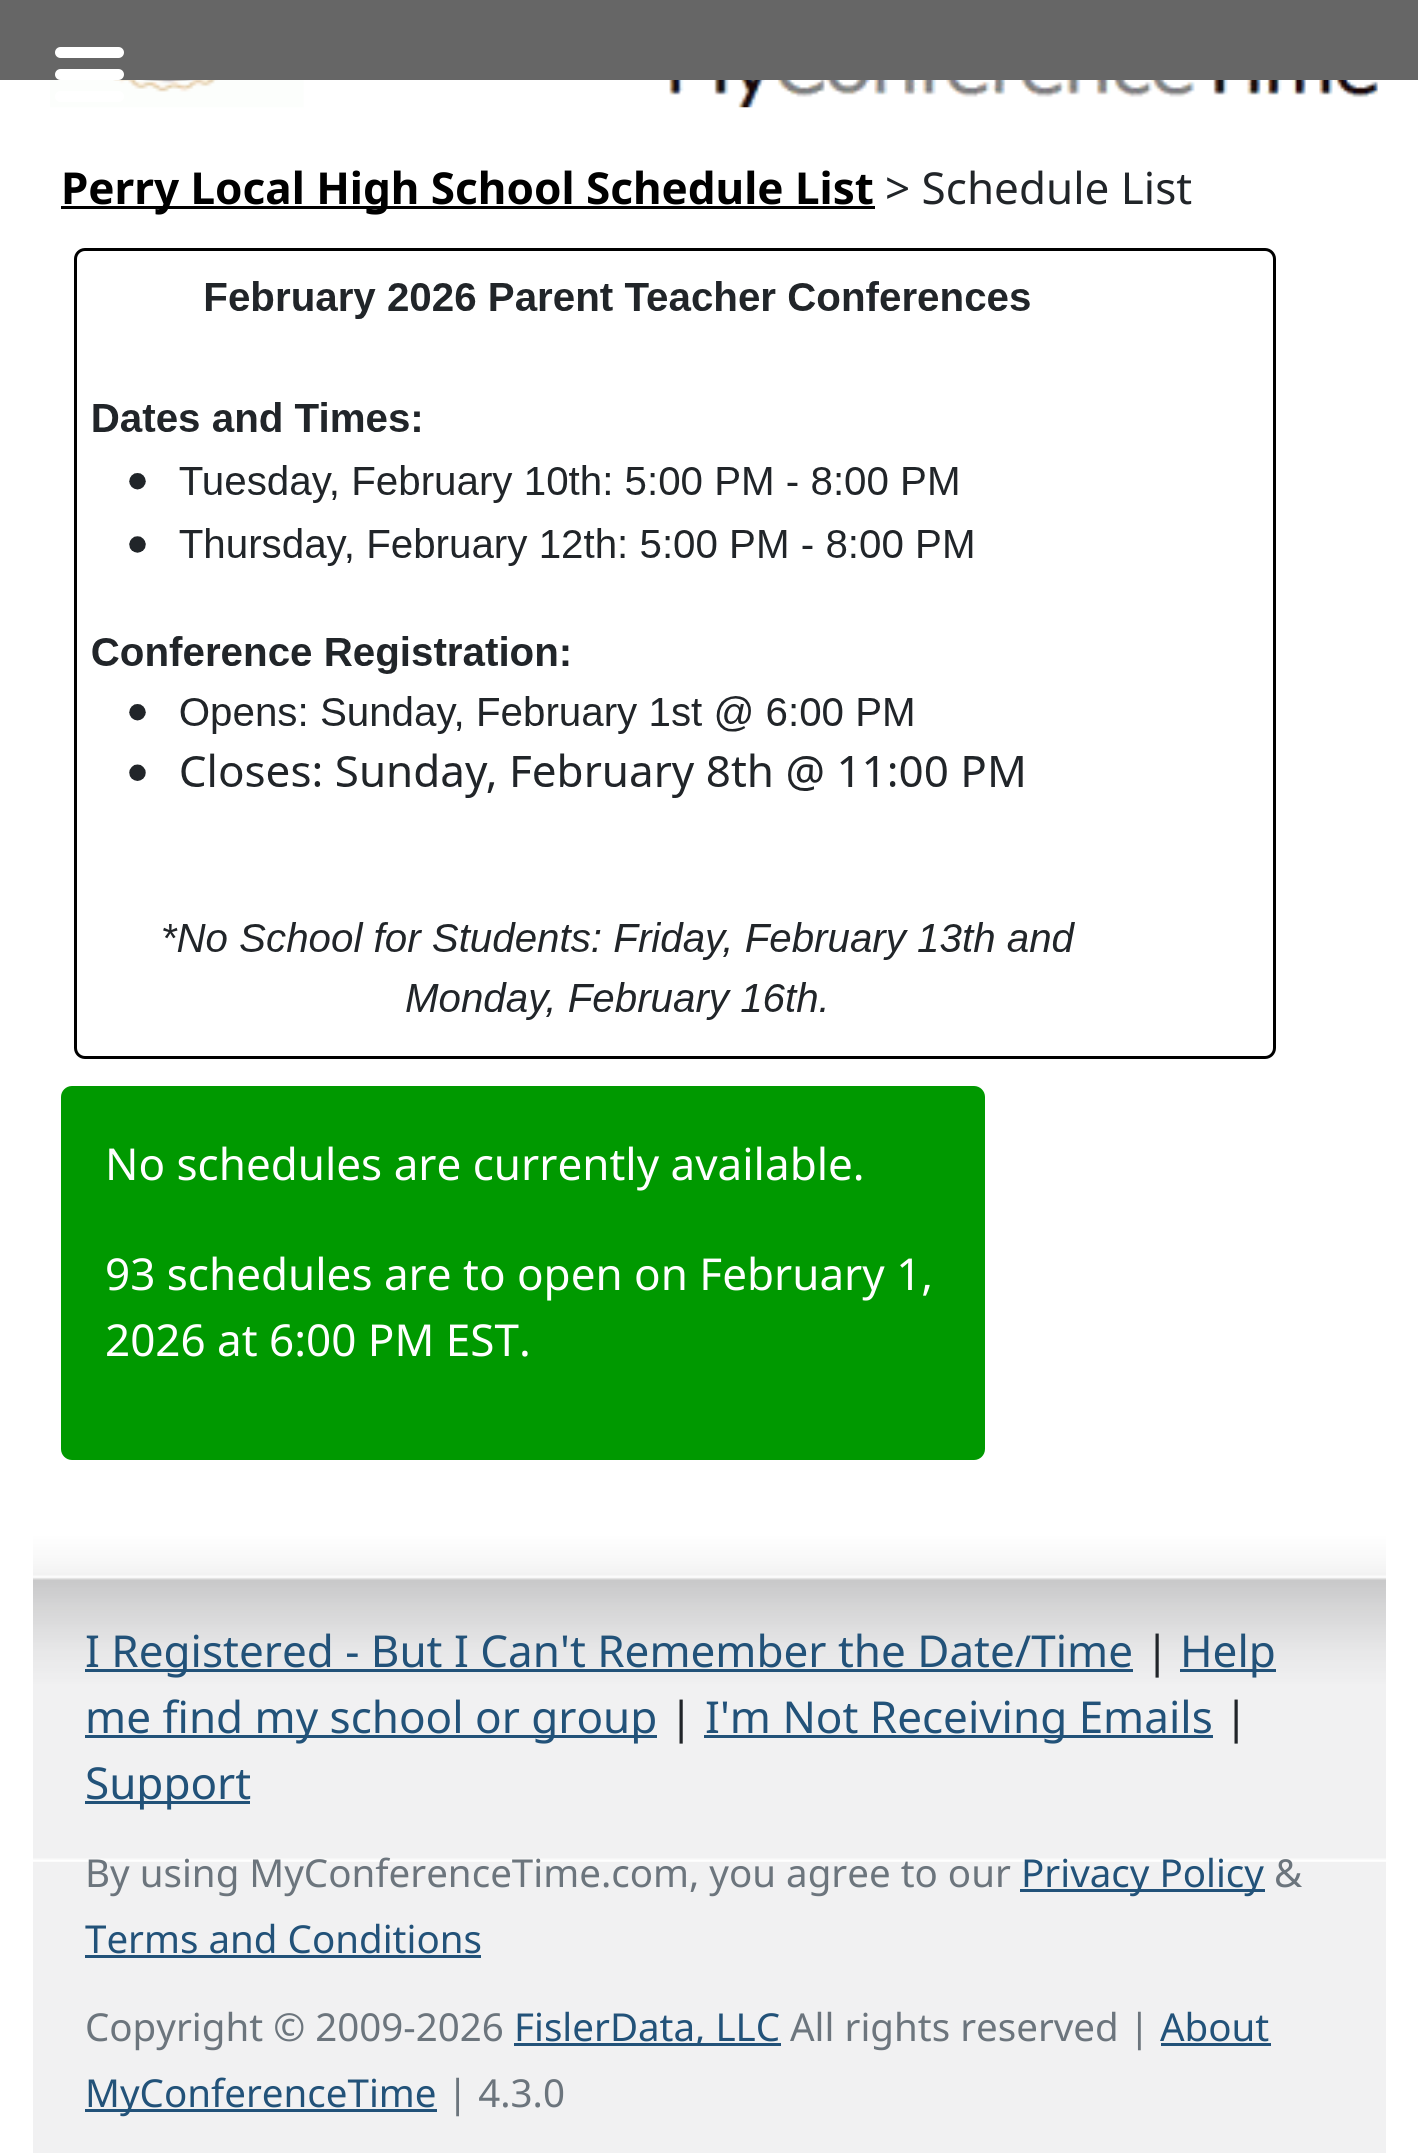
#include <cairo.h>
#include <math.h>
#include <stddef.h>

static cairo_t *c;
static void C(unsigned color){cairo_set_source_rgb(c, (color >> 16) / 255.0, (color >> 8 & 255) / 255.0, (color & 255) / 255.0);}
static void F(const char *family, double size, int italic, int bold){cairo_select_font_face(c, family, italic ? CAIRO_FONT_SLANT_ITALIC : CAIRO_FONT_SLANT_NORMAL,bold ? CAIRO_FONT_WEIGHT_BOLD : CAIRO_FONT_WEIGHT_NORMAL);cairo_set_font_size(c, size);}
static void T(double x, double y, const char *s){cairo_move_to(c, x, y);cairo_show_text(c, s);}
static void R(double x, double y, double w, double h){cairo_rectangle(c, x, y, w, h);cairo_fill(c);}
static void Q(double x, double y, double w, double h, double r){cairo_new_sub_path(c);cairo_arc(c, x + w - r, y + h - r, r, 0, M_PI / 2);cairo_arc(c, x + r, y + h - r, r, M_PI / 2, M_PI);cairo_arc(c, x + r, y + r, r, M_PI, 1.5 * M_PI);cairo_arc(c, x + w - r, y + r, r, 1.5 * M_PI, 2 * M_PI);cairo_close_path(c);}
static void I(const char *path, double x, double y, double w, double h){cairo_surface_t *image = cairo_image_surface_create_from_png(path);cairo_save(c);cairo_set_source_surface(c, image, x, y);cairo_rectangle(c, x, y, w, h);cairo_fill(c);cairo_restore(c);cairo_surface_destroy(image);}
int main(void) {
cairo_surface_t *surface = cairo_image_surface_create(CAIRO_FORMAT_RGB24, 1418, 2153);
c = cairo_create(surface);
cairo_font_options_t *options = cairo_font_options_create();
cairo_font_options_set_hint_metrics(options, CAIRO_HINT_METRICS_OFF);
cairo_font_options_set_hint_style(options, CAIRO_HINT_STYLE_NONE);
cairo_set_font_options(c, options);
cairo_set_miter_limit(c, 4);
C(0xffffff);
cairo_paint(c);
C(0x666666);
R(0,0,1418,80);
I("1.png",50,80,1328,28);
C(0xffffff);
Q(55,91,69,11,5.5);
cairo_fill(c);
Q(55,69,69,11,5.5);
cairo_fill(c);
Q(55,47,69,11,5.5);
cairo_fill(c);
C(0x000000);
R(61,206,814,3);
F("Noto Sans",44,0,1);
T(61,204,"Perry Local High School Schedule List");
F("Noto Sans",44,0,0);
C(0x212529);
T(885,204,"> Schedule List");
Q(75.5,249.5,1199,808,9.5);
C(0x000000);
cairo_set_line_width(c,3);
cairo_stroke(c);
I("2.png",92,281,983,739);
C(0x009900);
Q(61,1086,924,374,11);
cairo_fill(c);
C(0xffffff);
T(105,1180,"No schedules are currently available.");
T(105,1290,"93 schedules are to open on February 1,");
T(105,1356,"2026 at 6:00 PM EST.");
C(0xf1f1f2);
R(33,1861,1353,292);
I("3.png",33,1535,1353,327);
C(0x225279);
R(85,1669,1048,3);
T(85,1667,"I Registered - But I Can't Remember the Date/Time");
C(0x212529);
T(1145,1667,"|");
C(0x225279);
R(1180,1669,96,3);
T(1180,1667,"Help");
R(85,1735,572,3);
T(85,1733,"me find my school or group");
C(0x212529);
T(669,1733,"|");
C(0x225279);
R(704,1735,509,3);
T(705,1733,"I'm Not Receiving Emails");
C(0x212529);
T(1224,1733,"|");
C(0x225279);
R(85,1801,165,3);
T(85,1799,"Support");
F("Noto Sans",38.5,0,0);
C(0x6c757d);
T(85,1887,"By using MyConferenceTime.com, you agree to our");
C(0x225279);
R(1020,1889,245,3);
T(1021,1887,"Privacy Policy");
C(0x6c757d);
T(1274,1887,"&");
C(0x225279);
T(85,1953,"Terms and Conditions");
R(85,1955,396,3);
C(0x6c757d);
T(85,2041,"Copyright © 2009-2026");
C(0x225279);
R(514,2043,267,3);
T(514,2041,"FislerData, LLC");
C(0x6c757d);
T(790,2041,"All rights reserved |");
C(0x225279);
T(1160,2041,"About");
R(1161,2043,110,3);
R(85,2109,352,3);
T(85,2107,"MyConferenceTime");
C(0x6c757d);
T(447,2107,"| 4.3.0");
cairo_surface_write_to_png(surface, "o.png");
cairo_font_options_destroy(options);
cairo_destroy(c);
cairo_surface_destroy(surface);
return 0;
}
